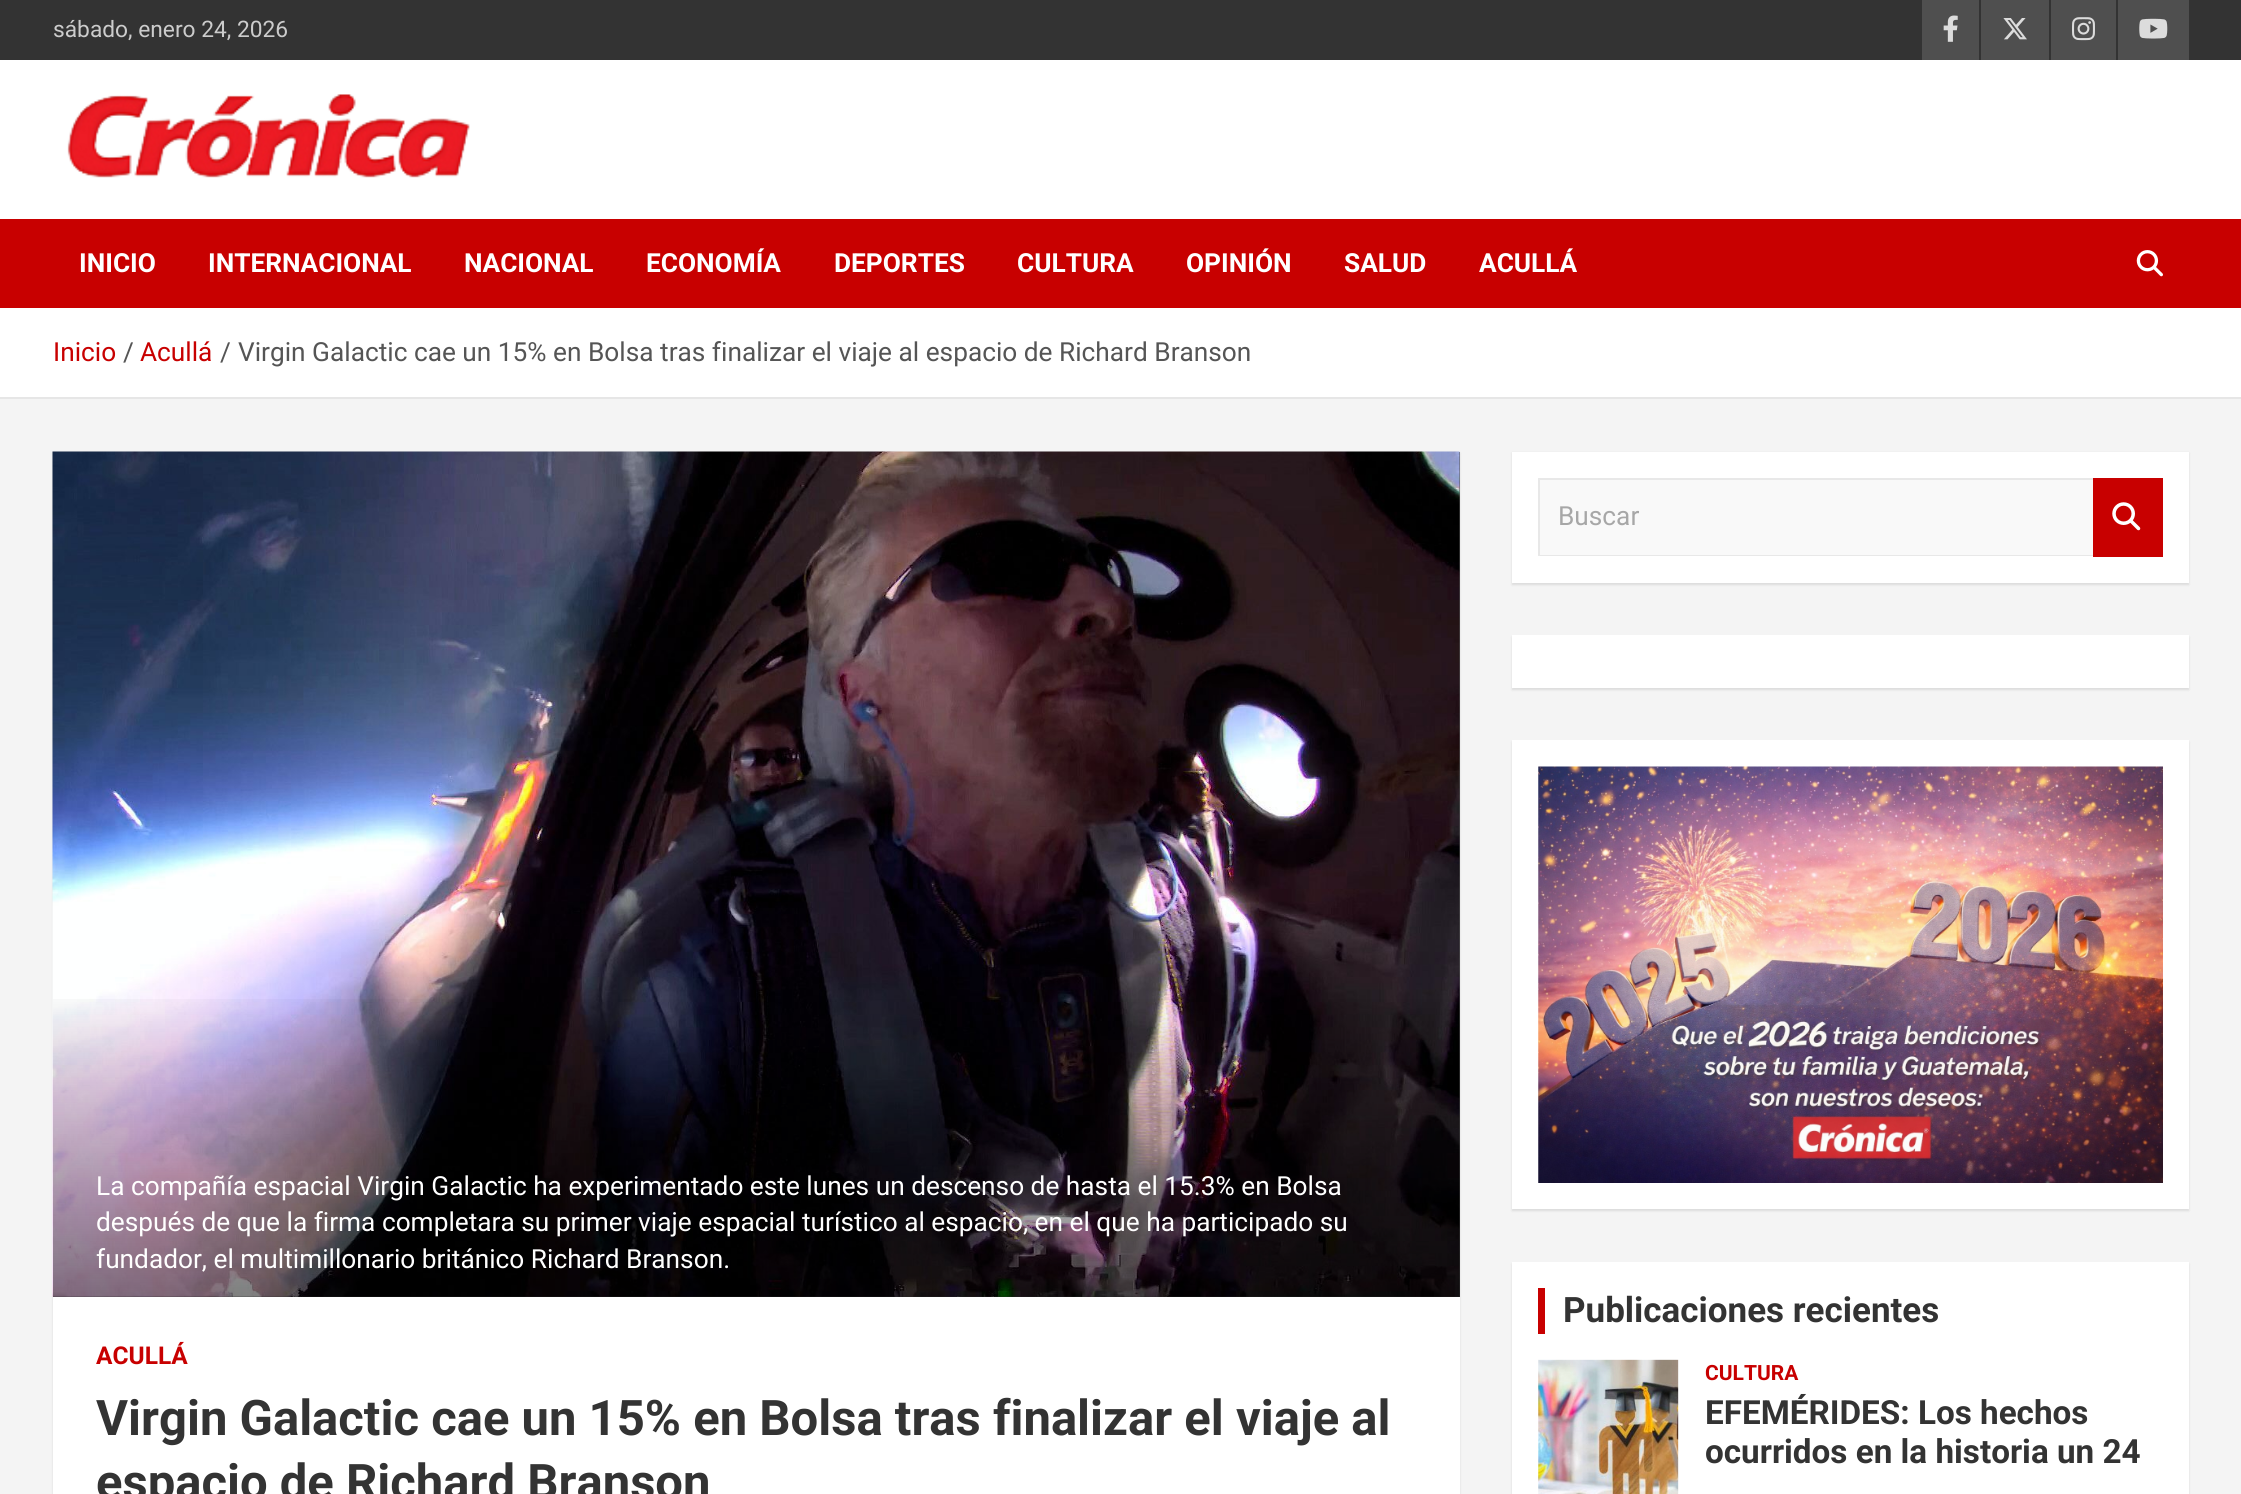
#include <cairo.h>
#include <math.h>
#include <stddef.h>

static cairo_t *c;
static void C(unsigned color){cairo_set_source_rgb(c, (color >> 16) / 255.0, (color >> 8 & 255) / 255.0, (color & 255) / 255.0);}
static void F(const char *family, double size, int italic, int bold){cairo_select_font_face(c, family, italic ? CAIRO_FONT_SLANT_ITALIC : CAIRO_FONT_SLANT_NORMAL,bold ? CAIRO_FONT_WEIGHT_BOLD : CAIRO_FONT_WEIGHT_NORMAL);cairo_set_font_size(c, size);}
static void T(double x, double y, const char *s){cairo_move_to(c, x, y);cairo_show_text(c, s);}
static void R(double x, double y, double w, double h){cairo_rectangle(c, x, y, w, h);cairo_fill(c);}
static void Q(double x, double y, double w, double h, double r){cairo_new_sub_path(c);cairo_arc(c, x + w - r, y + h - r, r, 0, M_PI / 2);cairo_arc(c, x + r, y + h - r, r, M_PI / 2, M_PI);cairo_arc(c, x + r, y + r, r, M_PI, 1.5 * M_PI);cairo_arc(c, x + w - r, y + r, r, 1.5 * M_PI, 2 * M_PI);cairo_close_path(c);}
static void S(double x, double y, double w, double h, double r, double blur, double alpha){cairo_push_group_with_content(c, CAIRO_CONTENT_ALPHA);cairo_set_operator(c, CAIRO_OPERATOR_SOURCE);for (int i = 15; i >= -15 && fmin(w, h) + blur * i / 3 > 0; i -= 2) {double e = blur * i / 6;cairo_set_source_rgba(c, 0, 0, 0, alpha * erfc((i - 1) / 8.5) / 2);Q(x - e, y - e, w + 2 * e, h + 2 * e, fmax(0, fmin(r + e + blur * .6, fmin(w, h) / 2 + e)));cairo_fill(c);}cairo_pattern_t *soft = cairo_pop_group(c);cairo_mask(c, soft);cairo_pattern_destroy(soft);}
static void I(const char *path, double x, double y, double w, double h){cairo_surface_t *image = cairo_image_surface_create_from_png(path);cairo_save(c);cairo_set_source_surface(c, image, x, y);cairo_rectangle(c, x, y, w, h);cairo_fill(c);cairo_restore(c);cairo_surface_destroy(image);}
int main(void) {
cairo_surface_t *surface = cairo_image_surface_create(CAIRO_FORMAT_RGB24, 2241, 1494);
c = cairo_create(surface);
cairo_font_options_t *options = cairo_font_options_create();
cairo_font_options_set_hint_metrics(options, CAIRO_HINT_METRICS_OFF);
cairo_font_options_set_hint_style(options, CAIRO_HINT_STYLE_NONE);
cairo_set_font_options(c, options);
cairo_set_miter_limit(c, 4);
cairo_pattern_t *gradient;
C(0xf4f4f4);
cairo_paint(c);
C(0x333333);
R(0,0,2241,60);
F("Roboto",22.75,0,0);
C(0xcccccc);
T(53,37,"sábado, enero 24, 2026");
C(0x4f4f4f);
R(1922,0,57,60);
I("1.png",1943,15,15,27);
R(1981,0,68,60);
I("2.png",2003,18,24,22);
R(2051,0,65,60);
I("3.png",2072,17,23,24);
R(2118,0,71,60);
I("4.png",2139,18,29,21);
C(0xffffff);
R(0,60,2241,159);
I("5.png",67,94,403,84);
C(0xc80000);
R(0,219,2241,89);
F("Roboto",26.25,0,1);
C(0xffffff);
T(79,272,"INICIO");
T(208,272,"INTERNACIONAL");
T(464,272,"NACIONAL");
T(646,272,"ECONOMÍA");
T(834,272,"DEPORTES");
T(1017,272,"CULTURA");
T(1186,272,"OPINIÓN");
T(1344,272,"SALUD");
T(1479,272,"ACULLÁ");
I("6.png",2136,250,27,27);
R(0,308,2241,89);
C(0xe6e6e6);
R(0,397,2241,2);
F("Roboto",26.25,0,0);
C(0xc80000);
T(53,361,"Inicio");
C(0x555555);
T(123,361,"/");
C(0xc80000);
T(140,361,"Acullá");
C(0x555555);
T(220,361,"/");
T(238,361,"Virgin Galactic cae un 15% en Bolsa tras finalizar el viaje al espacio de Richard Branson");
C(0x000000);
S(53,453,1407,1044,0,1,.1);
C(0xffffff);
R(53,1297,1407,197);
C(0x555555);
R(53,452,1407,845);
I("7.png",52,451,1408,846);
gradient = cairo_pattern_create_linear(756,675,756,1297);
cairo_pattern_add_color_stop_rgba(gradient,.5,0,0,0,0);
cairo_pattern_add_color_stop_rgba(gradient,1,0,0,0,.5);
cairo_set_source(c,gradient);
cairo_pattern_destroy(gradient);
R(53,999,1407,298);
C(0xffffff);
T(96,1195,"La compañía espacial Virgin Galactic ha experimentado este lunes un descenso de hasta el 15.3% en Bolsa");
T(96,1231,"después de que la firma completara su primer viaje espacial turístico al espacio, en el que ha participado su");
T(96,1268,"fundador, el multimillonario británico Richard Branson.");
F("Roboto",24.5,0,1);
C(0xc80000);
T(96,1364,"ACULLÁ");
F("Roboto",49,0,1);
C(0x333333);
T(96,1435,"Virgin Galactic cae un 15% en Bolsa tras finalizar el viaje al");
T(96,1499,"espacio de Richard Branson");
C(0x000000);
S(1512,453,677,132,0,1,.1);
C(0xffffff);
R(1512,452,677,131);
C(0xf9f9f9);
R(1540,480,553,75);
C(0xe8e8e8);
cairo_new_path(c);
cairo_move_to(c,1538,478);
cairo_line_to(c,2093,478);
cairo_line_to(c,2093,480);
cairo_line_to(c,1540,480);
cairo_close_path(c);
cairo_fill(c);
cairo_new_path(c);
cairo_move_to(c,2093,556);
cairo_line_to(c,1538,556);
cairo_line_to(c,1540,555);
cairo_line_to(c,2093,555);
cairo_close_path(c);
cairo_fill(c);
cairo_set_source_rgba(c,0,0,0,0.09);
cairo_new_path(c);
cairo_move_to(c,1538,556);
cairo_line_to(c,1538,478);
cairo_line_to(c,1540,480);
cairo_line_to(c,1540,555);
cairo_close_path(c);
cairo_fill(c);
F("Roboto",26.25,0,0);
C(0xa7a7a7);
T(1558,525,"Buscar");
C(0xc80000);
R(2093,478,70,79);
I("8.png",2112,502,29,29);
C(0x000000);
S(1512,637,677,53,0,1,.1);
C(0xffffff);
R(1512,635,677,53);
C(0x000000);
S(1512,742,677,469,0,1,.1);
C(0xffffff);
R(1512,740,677,469);
I("9.png",1538,766,625,417);
C(0x000000);
S(1512,1264,677,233,0,1,.1);
C(0xffffff);
R(1512,1262,677,232);
C(0xc80000);
R(1538,1288,7,46);
F("Roboto",35,0,1);
C(0x333333);
T(1563,1322,"Publicaciones recientes");
I("10.png",1538,1359,141,135);
F("Roboto",21,0,1);
C(0xc80000);
T(1705,1380,"CULTURA");
F("Roboto",33.25,0,1);
C(0x333333);
T(1705,1424,"EFEMÉRIDES: Los hechos");
T(1705,1463,"ocurridos en la historia un 24");
cairo_surface_write_to_png(surface, "o.png");
cairo_font_options_destroy(options);
cairo_destroy(c);
cairo_surface_destroy(surface);
return 0;
}
